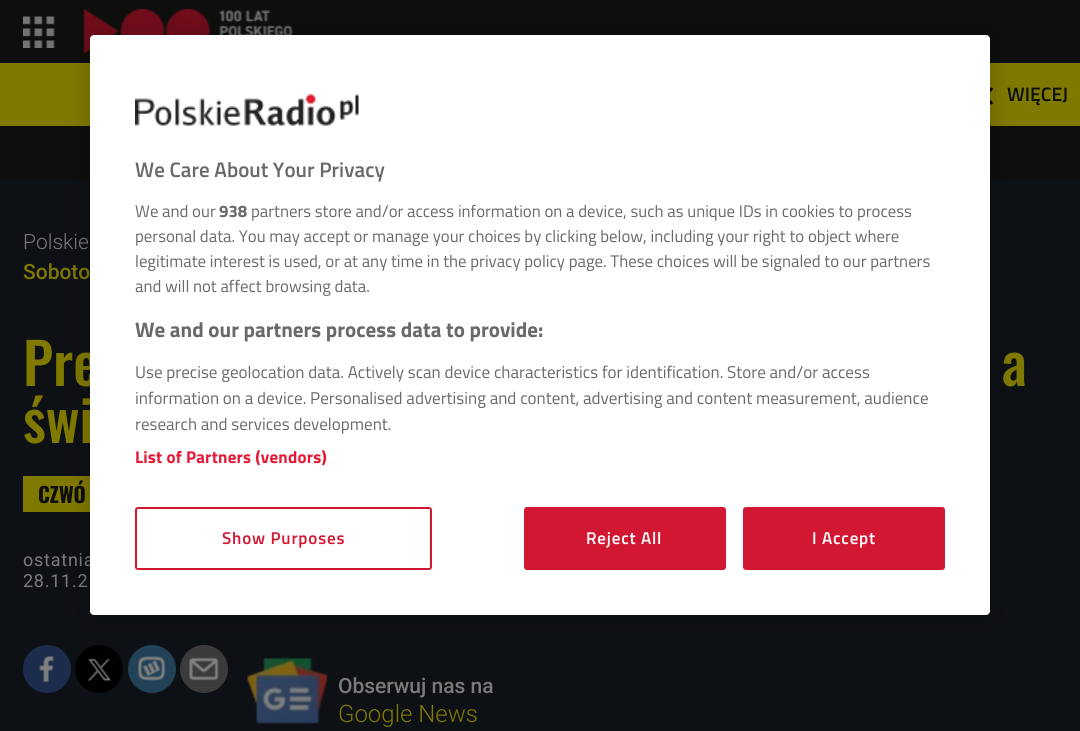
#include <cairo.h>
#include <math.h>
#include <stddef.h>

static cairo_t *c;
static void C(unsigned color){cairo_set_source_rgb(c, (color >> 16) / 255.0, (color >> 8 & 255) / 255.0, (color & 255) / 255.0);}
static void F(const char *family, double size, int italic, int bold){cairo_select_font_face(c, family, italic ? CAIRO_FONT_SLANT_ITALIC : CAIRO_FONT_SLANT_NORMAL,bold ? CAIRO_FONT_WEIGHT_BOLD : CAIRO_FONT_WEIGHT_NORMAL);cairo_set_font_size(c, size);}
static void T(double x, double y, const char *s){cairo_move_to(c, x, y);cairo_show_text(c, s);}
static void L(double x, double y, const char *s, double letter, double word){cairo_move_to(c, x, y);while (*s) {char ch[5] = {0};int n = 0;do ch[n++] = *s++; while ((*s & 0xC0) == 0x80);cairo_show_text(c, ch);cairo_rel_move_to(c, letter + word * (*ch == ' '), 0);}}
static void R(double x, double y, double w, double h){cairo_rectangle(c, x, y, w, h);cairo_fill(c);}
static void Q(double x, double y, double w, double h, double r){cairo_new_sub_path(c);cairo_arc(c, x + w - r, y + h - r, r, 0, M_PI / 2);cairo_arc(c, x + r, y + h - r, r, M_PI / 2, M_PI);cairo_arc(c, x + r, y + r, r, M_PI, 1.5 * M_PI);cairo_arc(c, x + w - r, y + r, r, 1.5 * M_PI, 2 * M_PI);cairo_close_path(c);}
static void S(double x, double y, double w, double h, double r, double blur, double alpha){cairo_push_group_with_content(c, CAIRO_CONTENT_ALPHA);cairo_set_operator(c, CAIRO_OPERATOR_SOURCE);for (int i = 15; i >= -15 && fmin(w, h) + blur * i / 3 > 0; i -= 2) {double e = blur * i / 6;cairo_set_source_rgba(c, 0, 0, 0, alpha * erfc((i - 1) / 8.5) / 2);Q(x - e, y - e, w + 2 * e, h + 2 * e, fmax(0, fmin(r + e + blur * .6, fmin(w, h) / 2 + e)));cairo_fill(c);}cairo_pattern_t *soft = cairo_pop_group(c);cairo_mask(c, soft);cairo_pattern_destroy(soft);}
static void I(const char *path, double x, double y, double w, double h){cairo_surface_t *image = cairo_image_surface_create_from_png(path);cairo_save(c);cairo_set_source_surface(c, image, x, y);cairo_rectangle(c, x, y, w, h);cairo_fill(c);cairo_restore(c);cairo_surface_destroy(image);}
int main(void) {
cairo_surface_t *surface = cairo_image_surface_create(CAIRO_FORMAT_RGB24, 1080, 731);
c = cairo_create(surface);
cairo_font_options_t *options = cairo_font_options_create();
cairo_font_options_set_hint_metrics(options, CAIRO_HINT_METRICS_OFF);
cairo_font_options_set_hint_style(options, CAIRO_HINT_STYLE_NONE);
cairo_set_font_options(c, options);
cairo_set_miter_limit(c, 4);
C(0x0e0e0d);
cairo_paint(c);
I("1.png",23,16,32,32);
I("2.png",83,9,210,45);
C(0x807900);
R(0,63,1080,63);
C(0x0e0e0d);
cairo_new_path(c);
cairo_move_to(c,993.5,103);
cairo_line_to(c,991.5,105);
cairo_line_to(c,982.5,96);
cairo_line_to(c,991.5,87);
cairo_line_to(c,993.5,89);
cairo_line_to(c,986.5,96);
cairo_close_path(c);
cairo_fill(c);
F("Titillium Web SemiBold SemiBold",19.5,0,0);
T(1007,101,"WIĘCEJ");
C(0x0d1014);
R(0,180,1080,551);
F("Roboto Light",21,0,0);
C(0x7c7b7b);
T(23,249,"Polskie");
F("Roboto Medium",21,0,0);
C(0x807900);
T(23,279,"Soboto");
F("Oswald Medium",57,0,0);
T(23,386,"Pre");
T(1002,386,"a");
T(23,443,"świ");
R(23,476,67,36);
F("Oswald",21,0,1);
C(0x0e0e0d);
T(38,503,"CZWÓ");
F("Roboto",18,0,0);
C(0x7c7b7b);
L(23,566,"ostatnia",.75,0);
L(23,587,"28.11.2",.75,0);
C(0x1b2c4d);
cairo_new_path(c);
cairo_arc(c,47,669,24,0,2 * M_PI);
cairo_fill(c);
I("3.png",39,656,15,27);
I("4.png",74,644,50,50);
C(0x224258);
cairo_arc(c,152,669,24,0,2 * M_PI);
cairo_fill(c);
I("5.png",138,656,28,25);
C(0x3b3b3b);
cairo_arc(c,204,669,24,0,2 * M_PI);
cairo_fill(c);
I("6.png",189,657,30,24);
I("7.png",247,657,81,67);
F("Roboto Medium",21,0,0);
C(0x7c7b7b);
T(338,693,"Obserwuj nas na");
F("Roboto Light",24,0,0);
C(0x807900);
T(338,722,"Google News");
C(0x000000);
S(90,35,900,580,4,13.5,.2);
C(0xffffff);
Q(90,35,900,580,4);
cairo_fill(c);
I("8.png",135,94,224,32);
F("Titillium Web SemiBold SemiBold",21,0,0);
C(0x696969);
T(135,177,"We Care About Your Privacy");
F("Titillium Web",16.8,0,0);
T(135,217,"We and our");
F("Titillium Web",16.8,0,1);
T(219,217,"938");
F("Titillium Web",16.8,0,0);
T(251,217,"partners store and/or access information on a device, such as unique IDs in cookies to process");
T(135,242,"personal data. You may accept or manage your choices by clicking below, including your right to object where");
T(135,267,"legitimate interest is used, or at any time in the privacy policy page. These choices will be signaled to our partners");
T(135,292,"and will not affect browsing data.");
F("Titillium Web",21,0,1);
T(135,337,"We and our partners process data to provide:");
F("Titillium Web",17.05,0,0);
T(135,378,"Use precise geolocation data. Actively scan device characteristics for identification. Store and/or access");
T(135,404,"information on a device. Personalised advertising and content, advertising and content measurement, audience");
T(135,430,"research and services development.");
F("Titillium Web",17.05,0,1);
C(0xe31936);
L(135,463,"List of Partners (vendors)",.2,0);
Q(136,508,295,61,2);
C(0xd21733);
cairo_stroke(c);
F("Titillium Web SemiBold SemiBold",17.05,0,0);
L(222,544,"Show Purposes",.8,0);
Q(525,508,200,61,2);
cairo_fill_preserve(c);
cairo_stroke(c);
C(0xffffff);
L(586,544,"Reject All",.8,0);
C(0xd21733);
Q(744,508,200,61,2);
cairo_fill_preserve(c);
cairo_stroke(c);
C(0xffffff);
L(812,544,"I Accept",.8,0);
cairo_surface_write_to_png(surface, "o.png");
cairo_font_options_destroy(options);
cairo_destroy(c);
cairo_surface_destroy(surface);
return 0;
}
